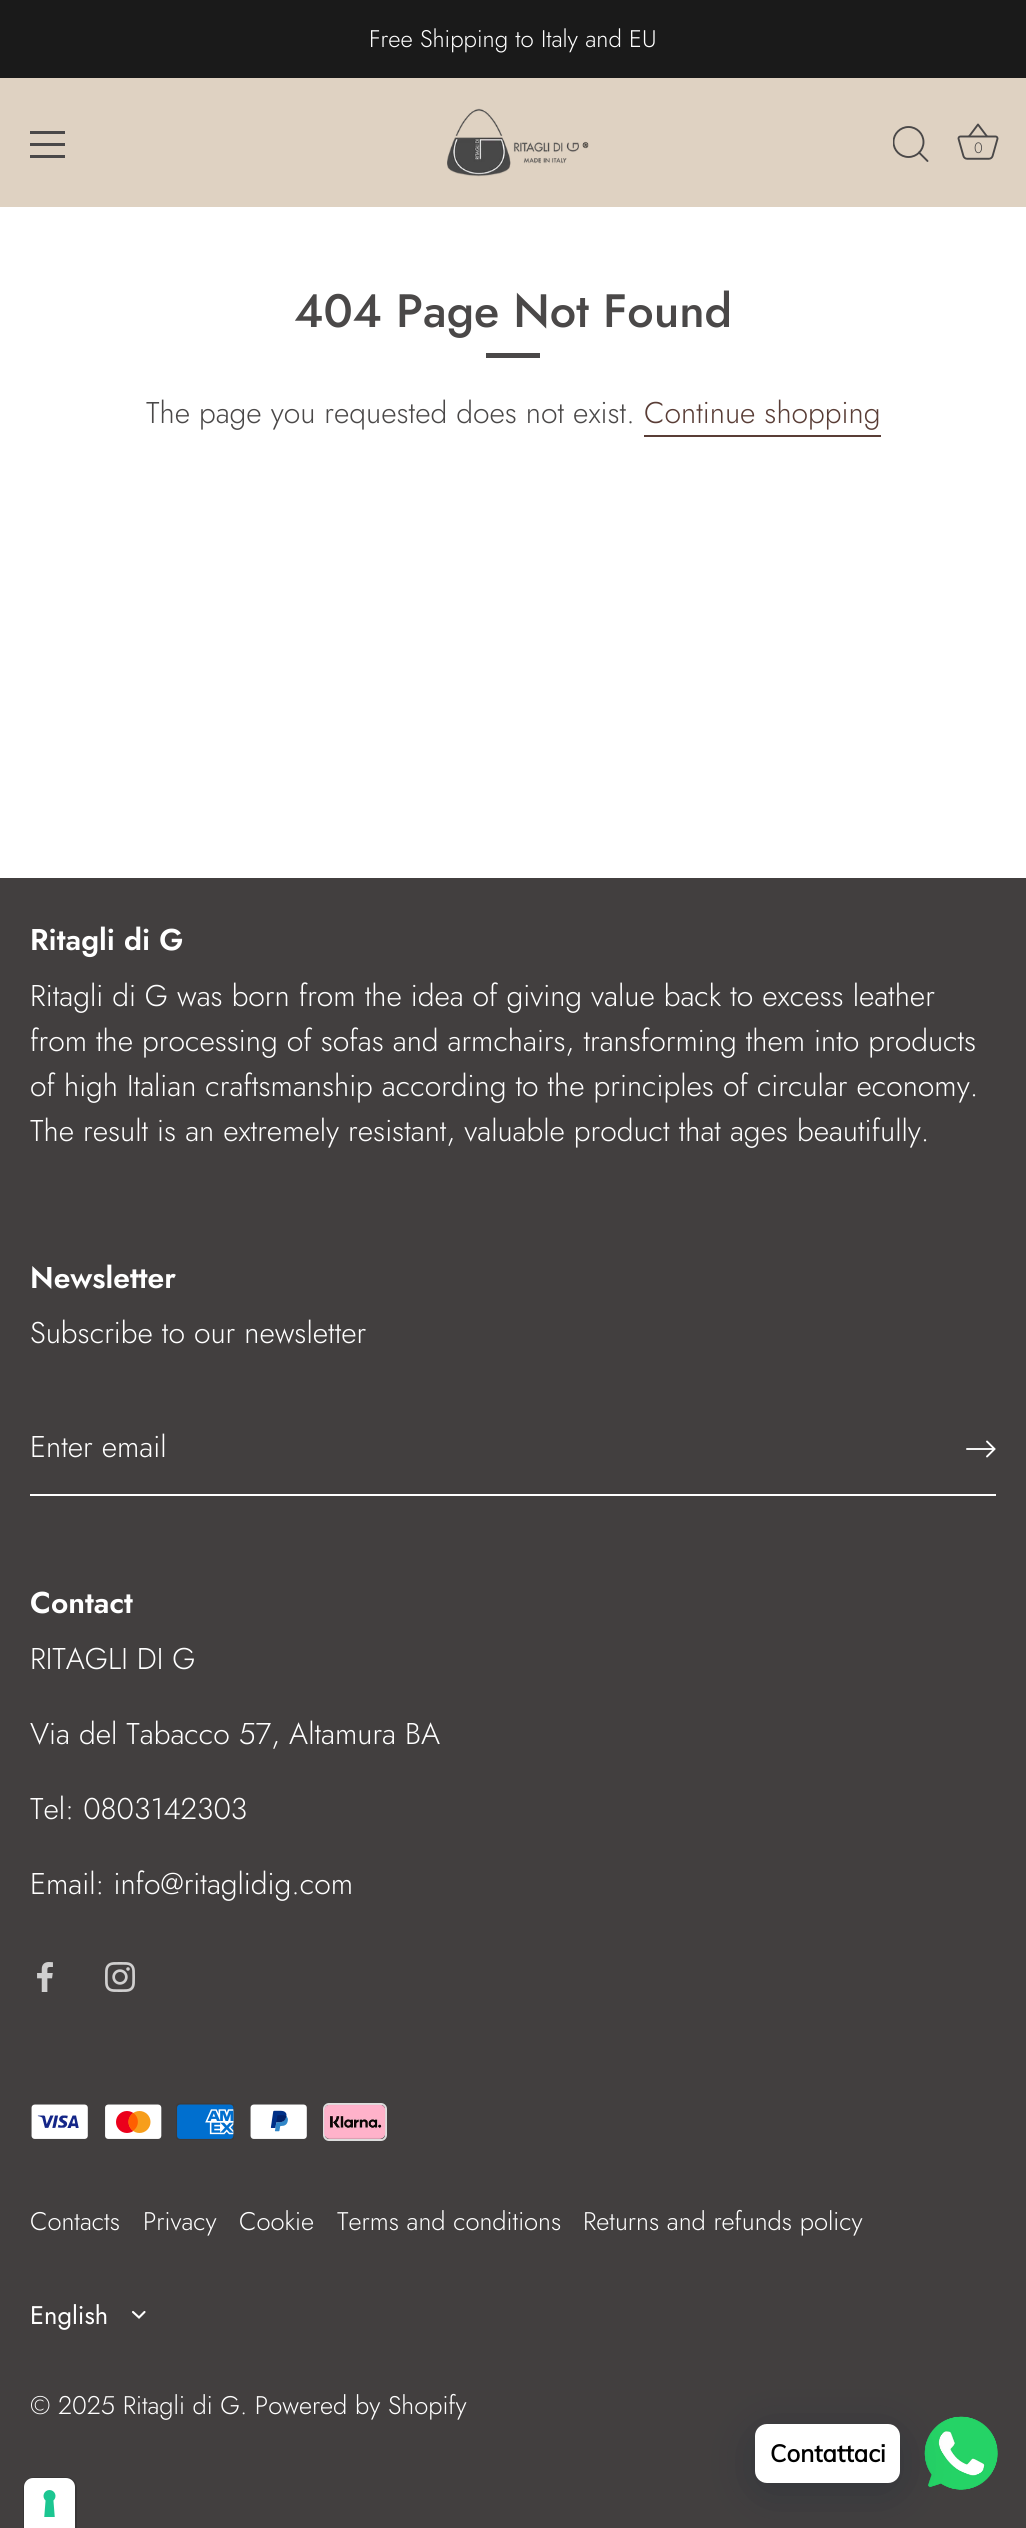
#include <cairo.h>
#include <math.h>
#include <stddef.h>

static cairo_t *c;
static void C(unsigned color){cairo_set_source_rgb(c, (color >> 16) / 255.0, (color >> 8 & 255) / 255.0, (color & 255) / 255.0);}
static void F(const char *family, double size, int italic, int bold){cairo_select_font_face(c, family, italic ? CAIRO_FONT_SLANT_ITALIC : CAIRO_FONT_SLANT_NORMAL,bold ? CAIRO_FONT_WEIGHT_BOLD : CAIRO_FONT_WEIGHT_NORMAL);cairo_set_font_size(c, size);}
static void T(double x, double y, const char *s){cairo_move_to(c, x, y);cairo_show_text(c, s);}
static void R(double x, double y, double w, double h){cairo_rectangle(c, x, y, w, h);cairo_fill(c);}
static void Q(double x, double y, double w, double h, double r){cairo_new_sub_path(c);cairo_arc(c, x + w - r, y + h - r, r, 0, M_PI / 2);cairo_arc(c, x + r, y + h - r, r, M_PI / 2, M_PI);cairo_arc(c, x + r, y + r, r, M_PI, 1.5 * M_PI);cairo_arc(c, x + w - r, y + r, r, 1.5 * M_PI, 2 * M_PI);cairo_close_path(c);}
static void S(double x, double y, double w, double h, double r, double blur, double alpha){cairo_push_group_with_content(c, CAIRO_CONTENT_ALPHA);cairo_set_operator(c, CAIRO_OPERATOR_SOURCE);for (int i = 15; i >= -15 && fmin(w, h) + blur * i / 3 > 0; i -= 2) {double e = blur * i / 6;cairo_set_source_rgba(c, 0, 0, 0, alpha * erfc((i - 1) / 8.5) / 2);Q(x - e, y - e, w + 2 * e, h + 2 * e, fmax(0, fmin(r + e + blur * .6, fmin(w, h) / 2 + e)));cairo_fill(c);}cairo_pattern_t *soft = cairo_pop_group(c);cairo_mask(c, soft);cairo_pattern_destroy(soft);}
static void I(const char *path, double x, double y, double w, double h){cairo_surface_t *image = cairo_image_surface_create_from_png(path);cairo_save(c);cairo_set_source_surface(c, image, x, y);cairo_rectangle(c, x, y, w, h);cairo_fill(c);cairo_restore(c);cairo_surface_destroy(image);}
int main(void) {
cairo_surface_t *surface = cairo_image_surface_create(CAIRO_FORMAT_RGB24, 1026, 2528);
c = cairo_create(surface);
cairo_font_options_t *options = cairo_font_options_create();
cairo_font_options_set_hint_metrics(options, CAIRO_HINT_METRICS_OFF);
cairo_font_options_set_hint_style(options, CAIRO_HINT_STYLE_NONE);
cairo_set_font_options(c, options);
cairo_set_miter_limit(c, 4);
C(0xffffff);
cairo_paint(c);
C(0xdfd2c2);
R(0,78,1026,129);
C(0x1a1a1a);
R(0,0,1026,78);
F("Jost Light",24,0,0);
C(0xffffff);
T(369,47,"Free Shipping to Italy and EU");
C(0x4a4848);
R(30,131,35,3);
R(30,143,35,3);
R(30,155,35,3);
I("1.png",447,108,142,69);
cairo_save(c);
cairo_rectangle(c,893,126,36,36);
cairo_clip(c);
cairo_arc(c,908.5,142,15,0,2 * M_PI);
cairo_set_line_width(c,1.9);
cairo_stroke(c);
cairo_restore(c);
cairo_new_path(c);
cairo_move_to(c,927.5,161);
cairo_line_to(c,919,152.5);
cairo_set_line_width(c,1.9);
cairo_set_line_cap(c,CAIRO_LINE_CAP_ROUND);
cairo_set_line_join(c,CAIRO_LINE_JOIN_ROUND);
cairo_stroke(c);
I("2.png",957,123,42,37);
F("Jost Light",15,0,0);
T(974,153,"0");
F("Jost Medium",46.75,0,0);
T(294,327,"404 Page Not Found");
R(486,353,54,5);
F("Jost Light",30,0,0);
T(146,423,"The page you requested does not exist.");
C(0x593d36);
T(644,423,"Continue shopping");
R(644,435,237,2);
C(0x423f3f);
R(0,878,1026,1650);
F("Jost SemiBold",30,0,0);
C(0xffffff);
T(30,950,"Ritagli di G");
F("Jost Light",30,0,0);
T(30,1006,"Ritagli di G was born from the idea of giving value back to excess leather");
T(30,1051,"from the processing of sofas and armchairs, transforming them into products");
T(30,1096,"of high Italian craftsmanship according to the principles of circular economy.");
T(30,1141,"The result is an extremely resistant, valuable product that ages beautifully.");
F("Jost SemiBold",30,0,0);
T(30,1288,"Newsletter");
F("Jost Light",30,0,0);
T(30,1343,"Subscribe to our newsletter");
R(30,1494,966,2);
T(30,1457,"Enter email");
cairo_new_path(c);
cairo_move_to(c,987,1456.5);
cairo_line_to(c,994.5,1449);
cairo_line_to(c,987,1441.5);
cairo_set_line_join(c,CAIRO_LINE_JOIN_MITER);
cairo_stroke(c);
cairo_new_path(c);
cairo_move_to(c,993.5,1449);
cairo_line_to(c,967,1449);
cairo_set_line_join(c,CAIRO_LINE_JOIN_ROUND);
cairo_stroke(c);
F("Jost SemiBold",30,0,0);
T(30,1613,"Contact");
F("Jost Light",30,0,0);
T(30,1669,"RITAGLI DI G");
T(30,1744,"Via del Tabacco 57, Altamura BA");
T(30,1819,"Tel: 0803142303");
T(30,1894,"Email: info@ritaglidig.com");
I("3.png",37,1962,16,30);
I("4.png",105,1962,30,30);
I("5.png",31,2104,57,35);
I("6.png",105,2104,57,35);
I("7.png",176,2103,58,37);
I("8.png",250,2104,57,35);
Q(324,2104,62,36,5);
C(0xdddddd);
cairo_set_line_width(c,2);
cairo_set_line_cap(c,CAIRO_LINE_CAP_BUTT);
cairo_set_line_join(c,CAIRO_LINE_JOIN_MITER);
cairo_stroke(c);
I("9.png",324,2104,62,35);
F("Jost Light",25.5,0,0);
C(0xffffff);
T(30,2230,"Contacts");
T(143,2230,"Privacy");
T(239,2230,"Cookie");
T(337,2230,"Terms and conditions");
T(583,2230,"Returns and refunds policy");
F("Jost",25.5,0,0);
T(30,2324,"English");
cairo_new_path(c);
cairo_move_to(c,133,2312);
cairo_line_to(c,139,2317.5);
cairo_line_to(c,144.5,2312);
cairo_set_line_width(c,2.1);
cairo_set_line_cap(c,CAIRO_LINE_CAP_ROUND);
cairo_stroke(c);
F("Jost Light",25.5,0,0);
T(30,2414,"© 2025 Ritagli di G. Powered by Shopify");
I("10.png",924,2416,74,74);
C(0x00122e);
S(755,2433,145,59,12,24,.24);
C(0xffffff);
Q(755,2424,145,59,12);
cairo_fill(c);
F("Muli",24,0,1);
C(0x000000);
T(770,2462,"Contattaci");
cairo_new_path(c);
cairo_move_to(c,34,2478);
cairo_line_to(c,66,2478);
cairo_curve_to(c,71.5,2478,76,2482.5,76,2488);
cairo_line_to(c,76,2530);
cairo_line_to(c,24,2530);
cairo_line_to(c,24,2488);
cairo_curve_to(c,24,2482.5,28.5,2478,34,2478);
cairo_close_path(c);
C(0x383636);
cairo_set_line_width(c,2);
cairo_set_line_cap(c,CAIRO_LINE_CAP_BUTT);
cairo_stroke(c);
C(0xffffff);
cairo_new_path(c);
cairo_move_to(c,33,2478);
cairo_line_to(c,66,2478);
cairo_curve_to(c,71,2478,75,2482,75,2487);
cairo_line_to(c,75,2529);
cairo_line_to(c,24,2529);
cairo_line_to(c,24,2487);
cairo_curve_to(c,24,2482,28,2478,33,2478);
cairo_close_path(c);
cairo_fill(c);
I("11.png",43,2490,13,27);
cairo_surface_write_to_png(surface, "o.png");
cairo_font_options_destroy(options);
cairo_destroy(c);
cairo_surface_destroy(surface);
return 0;
}
